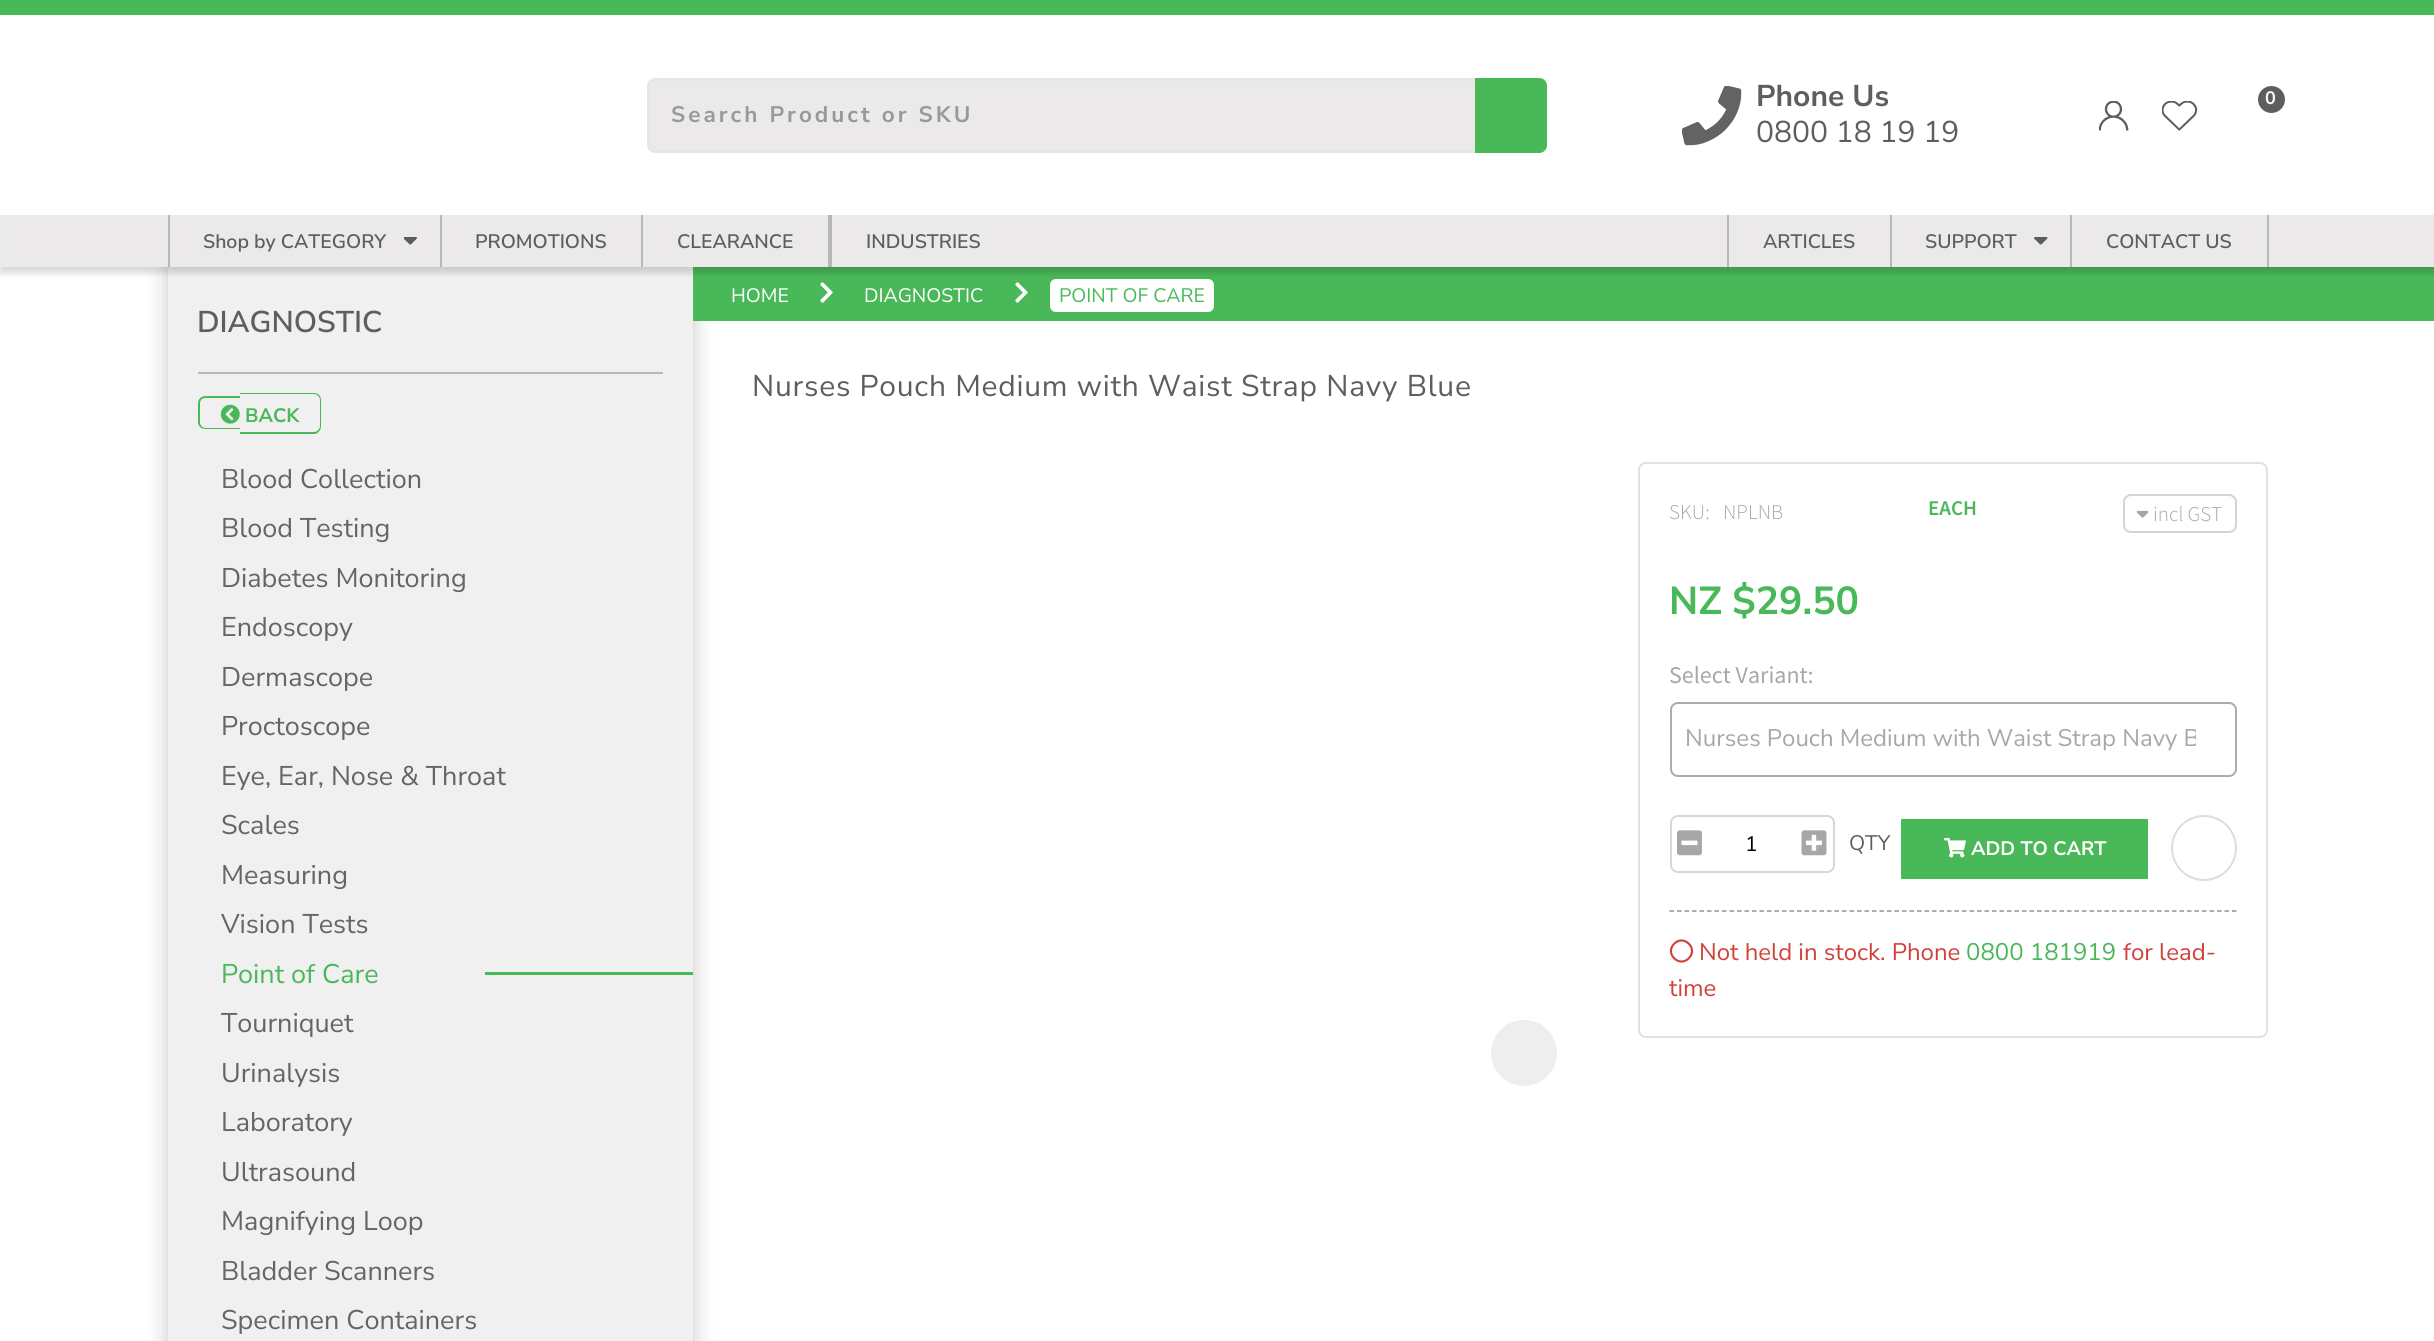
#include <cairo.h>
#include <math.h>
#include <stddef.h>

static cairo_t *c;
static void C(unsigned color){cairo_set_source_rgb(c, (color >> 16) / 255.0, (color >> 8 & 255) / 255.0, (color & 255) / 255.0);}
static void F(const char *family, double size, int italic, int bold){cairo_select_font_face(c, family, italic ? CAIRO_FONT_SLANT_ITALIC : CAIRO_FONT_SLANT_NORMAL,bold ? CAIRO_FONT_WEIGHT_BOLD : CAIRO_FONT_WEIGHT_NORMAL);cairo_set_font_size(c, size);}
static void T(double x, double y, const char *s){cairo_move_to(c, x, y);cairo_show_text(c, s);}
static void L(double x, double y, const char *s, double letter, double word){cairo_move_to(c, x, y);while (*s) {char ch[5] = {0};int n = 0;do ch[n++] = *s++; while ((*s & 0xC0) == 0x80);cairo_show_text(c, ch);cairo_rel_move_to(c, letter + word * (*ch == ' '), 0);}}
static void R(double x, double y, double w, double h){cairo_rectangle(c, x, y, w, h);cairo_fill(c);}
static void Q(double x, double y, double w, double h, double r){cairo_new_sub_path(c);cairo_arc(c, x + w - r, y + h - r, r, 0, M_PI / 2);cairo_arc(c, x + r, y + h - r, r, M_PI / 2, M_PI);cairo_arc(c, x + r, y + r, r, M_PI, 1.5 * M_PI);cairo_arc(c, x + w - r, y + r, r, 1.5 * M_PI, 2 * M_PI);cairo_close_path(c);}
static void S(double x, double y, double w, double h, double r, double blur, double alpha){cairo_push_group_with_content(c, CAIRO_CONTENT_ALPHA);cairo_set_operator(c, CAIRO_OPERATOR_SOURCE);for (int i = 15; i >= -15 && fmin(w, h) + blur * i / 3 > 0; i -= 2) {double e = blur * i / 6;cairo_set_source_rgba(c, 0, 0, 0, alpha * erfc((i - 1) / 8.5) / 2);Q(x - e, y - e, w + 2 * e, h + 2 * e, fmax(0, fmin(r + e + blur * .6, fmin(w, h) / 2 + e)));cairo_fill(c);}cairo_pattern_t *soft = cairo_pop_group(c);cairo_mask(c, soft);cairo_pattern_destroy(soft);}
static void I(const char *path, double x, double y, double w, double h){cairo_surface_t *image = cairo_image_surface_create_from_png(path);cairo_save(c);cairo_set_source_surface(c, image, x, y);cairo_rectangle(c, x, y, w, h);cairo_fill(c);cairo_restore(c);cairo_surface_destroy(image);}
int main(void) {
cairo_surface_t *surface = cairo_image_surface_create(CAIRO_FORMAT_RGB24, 2434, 1341);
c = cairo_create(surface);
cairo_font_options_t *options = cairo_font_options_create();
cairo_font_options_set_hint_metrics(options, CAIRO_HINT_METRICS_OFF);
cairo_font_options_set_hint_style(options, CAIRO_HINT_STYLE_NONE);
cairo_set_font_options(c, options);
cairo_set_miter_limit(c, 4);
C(0xffffff);
cairo_paint(c);
C(0x000000);
S(168,267,525,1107,0,11,.23);
C(0xf0f0f0);
R(168,267,525,1074);
C(0x49b858);
R(693,267,1741,54);
I("7.png",820,282,13,21);
I("7.png",1015,282,13,21);
C(0xffffff);
Q(1050,279,164,33,6);
cairo_fill(c);
C(0x000000);
S(0,6,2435,267,0,3,.15);
C(0xffffff);
R(0,15,2434,200);
C(0x49b858);
R(0,0,2434,15);
C(0xebe9e9);
Q(647,78,900,75,8);
cairo_fill(c);
Q(648.5,79.5,897,72,6.5);
cairo_set_source_rgba(c,0.882,0.882,0.882,0.27);
cairo_set_line_width(c,3);
cairo_stroke(c);
F("Nunito Sans",22.5,0,1);
C(0x999999);
L(671,122,"Search Product or SKU",3,0);
C(0x49b858);
cairo_new_path(c);
cairo_move_to(c,1475,78);
cairo_line_to(c,1539,78);
cairo_curve_to(c,1543.5,78,1547,81.5,1547,86);
cairo_line_to(c,1547,145);
cairo_curve_to(c,1547,149.5,1543.5,153,1539,153);
cairo_line_to(c,1475,153);
cairo_close_path(c);
cairo_fill(c);
I("1.png",1682,86,60,60);
F("Nunito Sans",30,0,1);
C(0x5e5e5e);
T(1756,106,"Phone Us");
F("Nunito Sans",30,0,0);
T(1756,142,"0800 18 19 19");
cairo_new_path(c);
cairo_arc(c,2271.5,99.5,13.5,0,2 * M_PI);
cairo_fill(c);
F("Nunito Sans",18,0,1);
C(0xf8f8f8);
T(2265,104,"0");
I("2.png",2099,101,30,30);
I("3.png",2162,101,36,30);
C(0xebe9e9);
R(1,215,2433,52);
C(0xb7b7b7);
R(168,215,2,52);
F("Nunito Sans SemiBold",19.5,0,0);
C(0x5e5e5e);
T(203,248,"Shop by CATEGORY");
I("4.png",404,237,13,8);
C(0xb7b7b7);
R(440,215,2,52);
C(0x5e5e5e);
T(475,248,"PROMOTIONS");
C(0xb7b7b7);
R(828,215,4,52);
R(641,215,2,52);
C(0x5e5e5e);
T(677,248,"CLEARANCE");
T(866,248,"INDUSTRIES");
C(0xb7b7b7);
R(1727,215,2,52);
C(0x5e5e5e);
T(1763,248,"ARTICLES");
C(0xb7b7b7);
R(1890,215,2,52);
C(0x5e5e5e);
T(1925,248,"SUPPORT");
I("5.png",2034,237,14,8);
C(0xb7b7b7);
R(2267,215,2,52);
R(2070,215,2,52);
C(0x5e5e5e);
T(2106,248,"CONTACT US");
C(0xb8b8b8);
R(198,372,465,2);
F("Nunito Sans SemiBold",30,0,0);
C(0x5e5e5e);
T(197,332,"DIAGNOSTIC");
C(0x49b858);
cairo_set_fill_rule(c,CAIRO_FILL_RULE_EVEN_ODD);
cairo_new_path(c);
cairo_move_to(c,206,396);
cairo_line_to(c,240,396);
cairo_line_to(c,240,429);
cairo_line_to(c,206,429);
cairo_curve_to(c,201,429,198,426,198,422);
cairo_line_to(c,198,404);
cairo_curve_to(c,198,399,201,396,206,396);
cairo_close_path(c);
cairo_move_to(c,206,398);
cairo_line_to(c,240,398);
cairo_line_to(c,240,428);
cairo_line_to(c,206,428);
cairo_curve_to(c,202,428,200,425,200,422);
cairo_line_to(c,200,404);
cairo_curve_to(c,200,400,202,398,206,398);
cairo_close_path(c);
cairo_fill(c);
cairo_new_path(c);
cairo_move_to(c,240,393);
cairo_line_to(c,314,393);
cairo_curve_to(c,318,393,321,396,321,400);
cairo_line_to(c,321,426);
cairo_curve_to(c,321,430,318,434,314,434);
cairo_line_to(c,240,434);
cairo_close_path(c);
cairo_move_to(c,240,394);
cairo_line_to(c,314,394);
cairo_curve_to(c,317,394,320,397,320,400);
cairo_line_to(c,320,426);
cairo_curve_to(c,320,429,317,432,314,432);
cairo_line_to(c,240,432);
cairo_close_path(c);
cairo_fill(c);
I("6.png",220,404,20,20);
F("Nunito Sans",19.5,0,1);
T(245,422,"BACK");
F("Nunito Sans",27,0,0);
C(0x656565);
T(221,488,"Blood Collection");
T(221,537,"Blood Testing");
T(221,587,"Diabetes Monitoring");
T(221,636,"Endoscopy");
T(221,686,"Dermascope");
T(221,735,"Proctoscope");
T(221,785,"Eye, Ear, Nose & Throat");
T(221,834,"Scales");
T(221,884,"Measuring");
T(221,933,"Vision Tests");
C(0x49b858);
T(221,983,"Point of Care");
R(485,972,208,3);
C(0x656565);
T(221,1032,"Tourniquet");
T(221,1082,"Urinalysis");
T(221,1131,"Laboratory");
T(221,1181,"Ultrasound");
T(221,1230,"Magnifying Loop");
T(221,1280,"Bladder Scanners");
T(221,1329,"Specimen Containers");
F("Nunito Sans",19.5,0,0);
C(0xffffff);
T(731,302,"HOME");
T(864,302,"DIAGNOSTIC");
C(0x49b858);
T(1059,302,"POINT OF CARE");
F("Nunito Sans",30,0,0);
C(0x5e5e5e);
L(752,396,"Nurses Pouch Medium with Waist Strap Navy Blue",.75,0);
Q(1639,463,628,574,7);
C(0xe1e1e1);
cairo_set_line_width(c,2);
cairo_stroke(c);
F("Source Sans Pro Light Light",21,0,0);
C(0xa7a7a7);
T(1669,519,"SKU:");
T(1723,519,"NPLNB");
F("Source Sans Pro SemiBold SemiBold",21,0,0);
C(0x49b858);
T(1928,515,"EACH");
Q(2124,495,112,37,7);
C(0xd4d4d4);
cairo_stroke(c);
I("8.png",2136,510,13,8);
F("Source Sans Pro Light Light",21,0,0);
C(0xa7a7a7);
T(2153,521,"incl GST");
F("Nunito Sans",39,0,1);
C(0x49b858);
T(1669,614,"NZ $29.50");
F("Source Sans Pro",24,0,0);
C(0xa7a7a7);
T(1669,683,"Select Variant:");
Q(1671,703,565,73,7);
C(0xacacac);
cairo_stroke(c);
cairo_save(c);
cairo_set_fill_rule(c,CAIRO_FILL_RULE_WINDING);
cairo_rectangle(c,1686,720,510,39);
cairo_clip(c);
F("Nunito Sans",24,0,0);
C(0xa7a7a7);
T(1685,746,"Nurses Pouch Medium with Waist Strap Navy B");
cairo_restore(c);
Q(1671,816,163,56,7);
C(0xd7d7d7);
cairo_stroke(c);
I("9.png",1677,830,25,26);
F("Nunito Sans",21,0,0);
C(0x000000);
T(1745,851,"1");
I("10.png",1801,830,26,26);
C(0x5e5e5e);
T(1849,850,"QTY");
C(0x49b858);
R(1901,819,247,60);
I("11.png",1944,837,22,21);
F("Nunito Sans",19.5,0,1);
C(0xffffff);
T(1971,855,"ADD TO CART");
cairo_new_path(c);
cairo_arc(c,2204,848,32,0,2 * M_PI);
C(0xdddddd);
cairo_stroke(c);
cairo_new_path(c);
cairo_move_to(c,1669.5,911);
cairo_line_to(c,2236.5,911);
C(0x929292);
cairo_set_line_width(c,1.5);
cairo_set_dash(c,(double[]){4.5,3},2,0);
cairo_stroke(c);
C(0xd14139);
cairo_set_fill_rule(c,CAIRO_FILL_RULE_WINDING);
cairo_new_path(c);
cairo_move_to(c,1673.5,943);
cairo_curve_to(c,1684,932,1700.5,948.5,1689.5,959);
cairo_curve_to(c,1679,970,1662.5,953.5,1673.5,943);
cairo_close_path(c);
cairo_move_to(c,1675,957.5);
cairo_curve_to(c,1683.5,966.5,1697,953,1688,944.5);
cairo_curve_to(c,1679.5,935.5,1666,949,1675,957.5);
cairo_close_path(c);
cairo_fill(c);
F("Nunito Sans",24,0,0);
T(1699,960,"Not held in stock. Phone");
C(0x49b858);
T(1966,960,"0800 181919");
C(0xd14139);
T(2123,960,"for lead-");
T(1669,996,"time");
C(0xeeeeee);
cairo_new_path(c);
cairo_arc(c,1524,1053,33,0,2 * M_PI);
cairo_fill(c);
cairo_surface_write_to_png(surface, "o.png");
cairo_font_options_destroy(options);
cairo_destroy(c);
cairo_surface_destroy(surface);
return 0;
}
